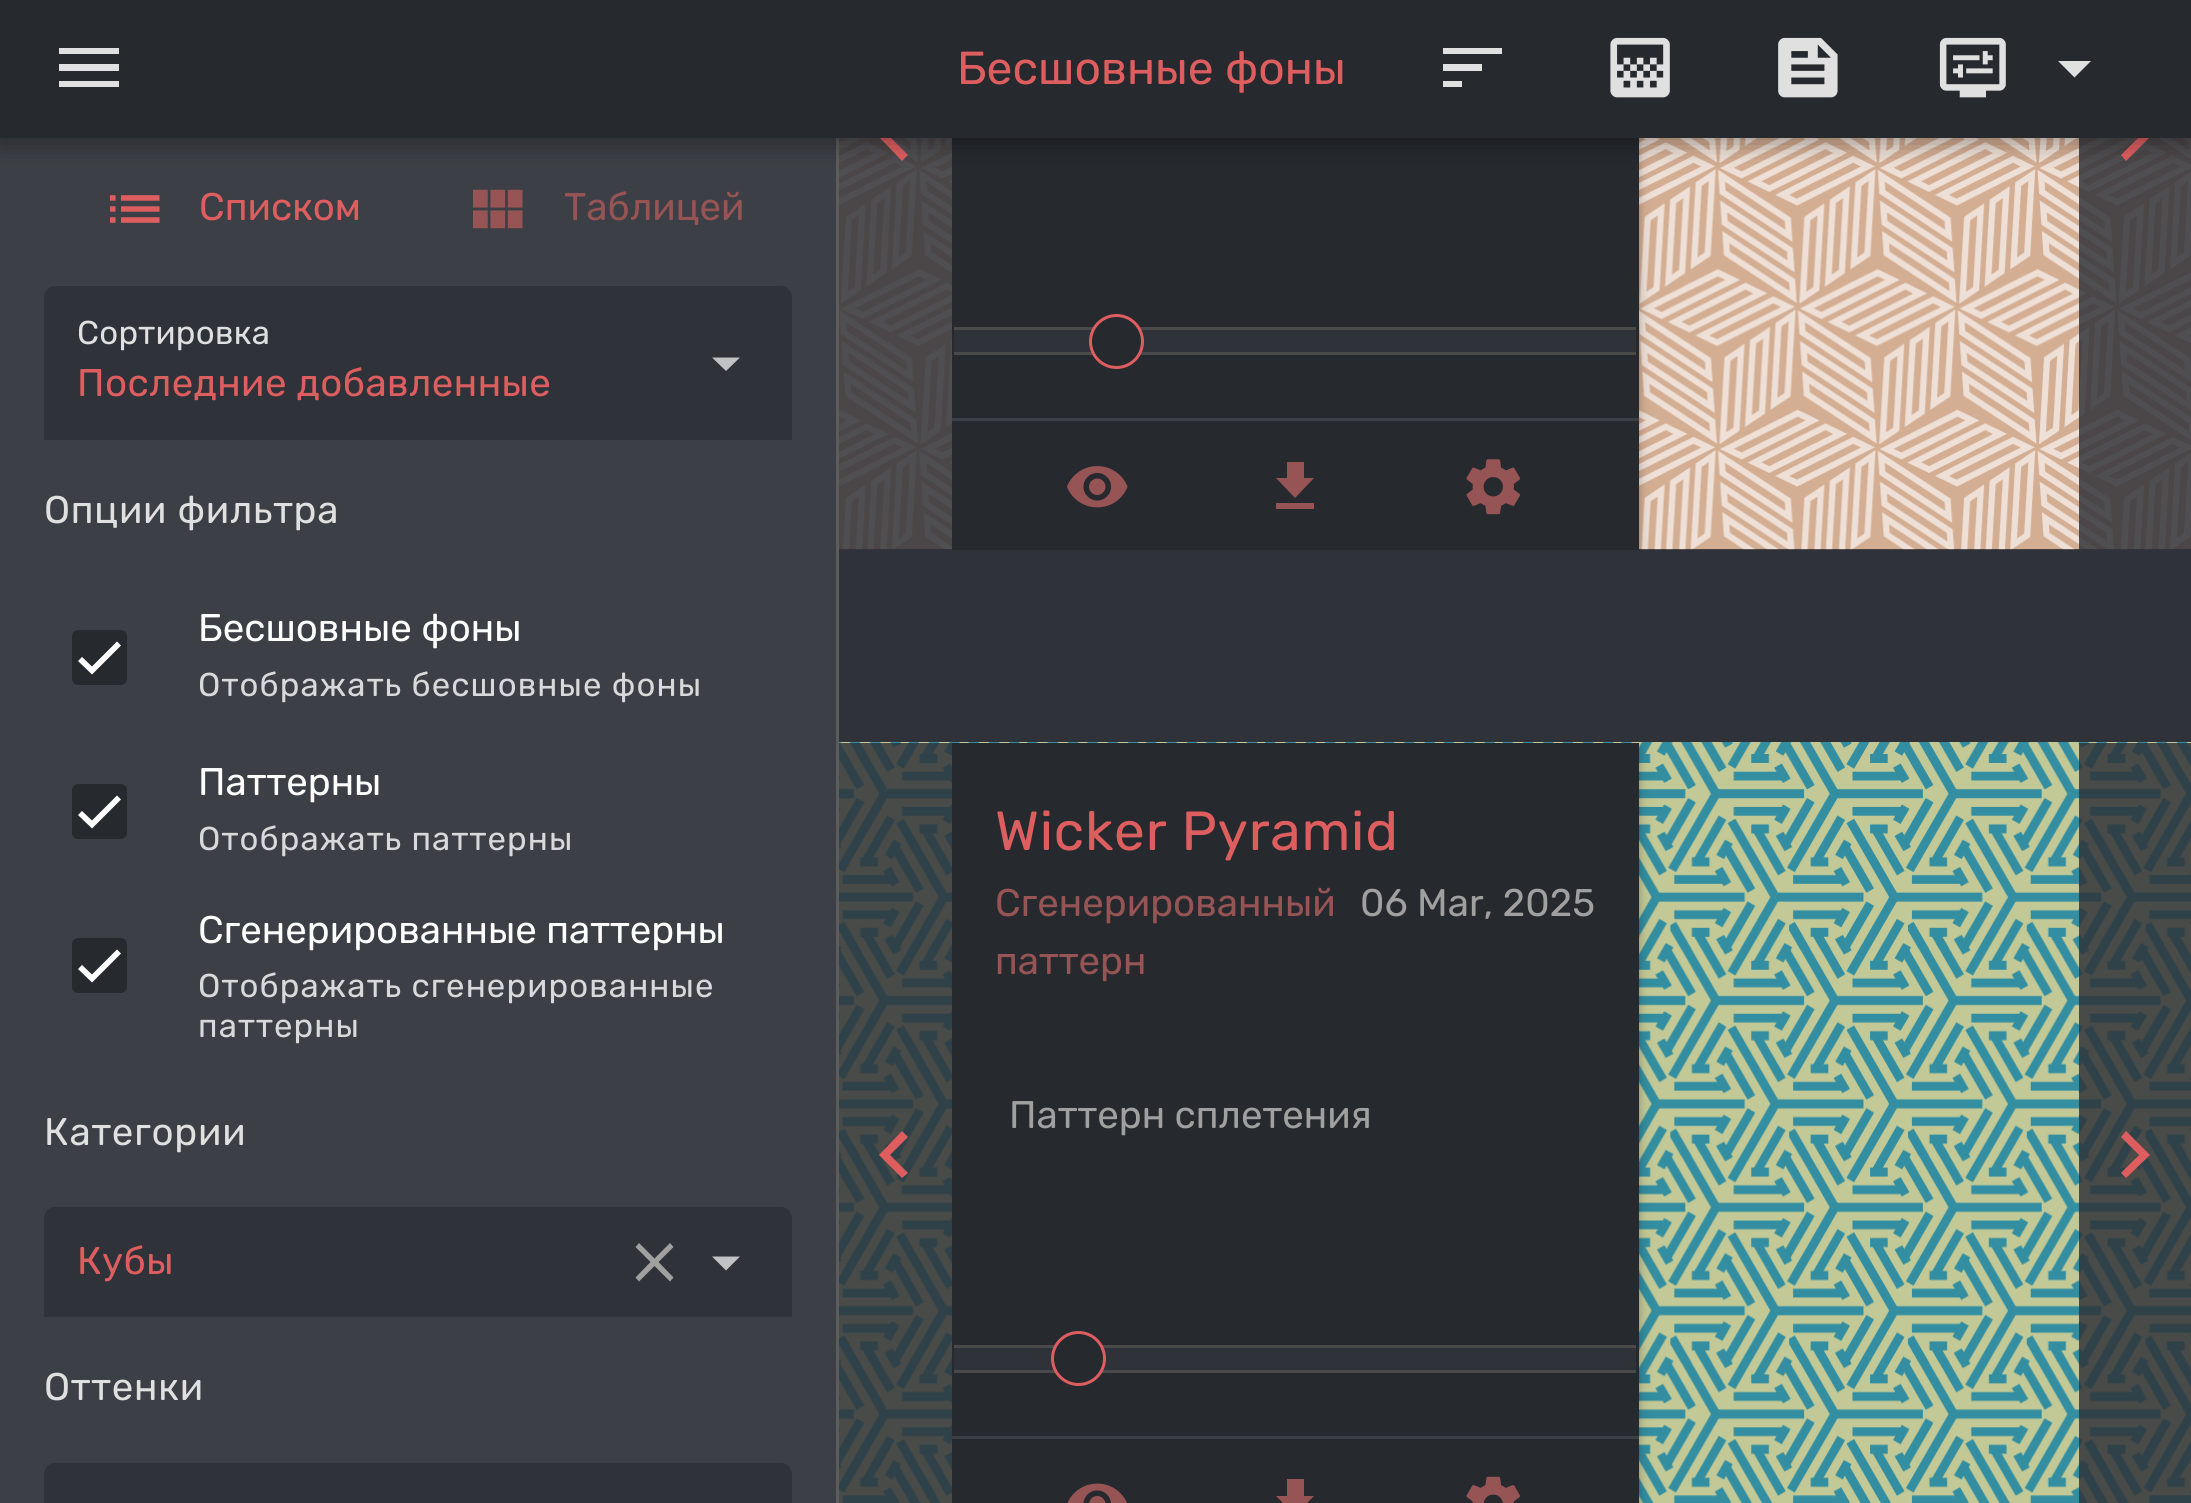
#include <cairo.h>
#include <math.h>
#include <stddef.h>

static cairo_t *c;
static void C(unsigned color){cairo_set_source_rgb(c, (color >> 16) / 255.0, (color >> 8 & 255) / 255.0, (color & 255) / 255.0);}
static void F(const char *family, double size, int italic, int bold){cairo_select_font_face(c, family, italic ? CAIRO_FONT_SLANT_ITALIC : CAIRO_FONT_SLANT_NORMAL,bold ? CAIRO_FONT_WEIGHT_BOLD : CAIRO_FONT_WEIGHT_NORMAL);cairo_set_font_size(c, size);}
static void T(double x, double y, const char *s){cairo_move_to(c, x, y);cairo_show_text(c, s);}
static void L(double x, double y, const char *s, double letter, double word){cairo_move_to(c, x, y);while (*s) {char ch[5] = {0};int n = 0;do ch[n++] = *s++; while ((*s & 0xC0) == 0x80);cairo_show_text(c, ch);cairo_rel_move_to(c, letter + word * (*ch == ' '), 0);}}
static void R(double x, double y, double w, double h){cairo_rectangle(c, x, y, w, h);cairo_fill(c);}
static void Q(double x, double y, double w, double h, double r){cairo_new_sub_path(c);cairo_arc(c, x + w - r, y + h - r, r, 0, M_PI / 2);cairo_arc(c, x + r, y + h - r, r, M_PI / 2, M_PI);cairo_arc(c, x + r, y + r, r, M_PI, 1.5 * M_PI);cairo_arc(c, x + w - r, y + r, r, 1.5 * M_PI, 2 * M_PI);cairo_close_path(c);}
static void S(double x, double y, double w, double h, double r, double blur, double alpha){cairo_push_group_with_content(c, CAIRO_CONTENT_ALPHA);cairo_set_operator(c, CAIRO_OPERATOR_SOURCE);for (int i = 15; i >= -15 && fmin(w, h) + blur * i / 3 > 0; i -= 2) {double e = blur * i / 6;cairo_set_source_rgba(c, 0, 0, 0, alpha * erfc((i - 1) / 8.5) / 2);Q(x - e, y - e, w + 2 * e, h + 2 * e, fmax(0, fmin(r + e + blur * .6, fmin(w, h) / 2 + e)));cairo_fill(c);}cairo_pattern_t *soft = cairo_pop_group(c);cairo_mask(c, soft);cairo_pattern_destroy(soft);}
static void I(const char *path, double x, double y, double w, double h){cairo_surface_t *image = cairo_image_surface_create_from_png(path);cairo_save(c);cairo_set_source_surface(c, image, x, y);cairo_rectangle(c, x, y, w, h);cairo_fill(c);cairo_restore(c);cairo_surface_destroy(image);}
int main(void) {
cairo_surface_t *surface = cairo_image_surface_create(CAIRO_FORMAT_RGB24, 2191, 1503);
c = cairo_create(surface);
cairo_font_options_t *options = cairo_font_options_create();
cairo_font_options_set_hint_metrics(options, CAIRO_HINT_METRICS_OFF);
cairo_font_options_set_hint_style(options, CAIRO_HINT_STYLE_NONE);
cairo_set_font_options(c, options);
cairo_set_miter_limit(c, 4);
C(0x2f3238);
cairo_paint(c);
I("8.png",839,138,1352,412);
cairo_set_source_rgba(c,0.184,0.196,0.22,0.83);
R(839,138,113,412);
C(0xde5e60);
cairo_new_path(c);
cairo_move_to(c,908,119);
cairo_line_to(c,890,137);
cairo_line_to(c,908,155);
cairo_line_to(c,902,161);
cairo_line_to(c,879,137);
cairo_line_to(c,902,114);
cairo_close_path(c);
cairo_fill(c);
cairo_save(c);
cairo_rectangle(c,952,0,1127,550);
cairo_clip(c);
C(0x000000);
S(952,-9,687,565,0,3,.14);
S(952,-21,687,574,0,7,.2);
cairo_restore(c);
cairo_set_source_rgba(c,0.184,0.196,0.22,0.83);
R(2079,138,112,412);
C(0xde5e60);
cairo_new_path(c);
cairo_move_to(c,2126,114);
cairo_line_to(c,2150,137);
cairo_line_to(c,2126,161);
cairo_line_to(c,2121,155);
cairo_line_to(c,2139,137);
cairo_line_to(c,2121,119);
cairo_close_path(c);
cairo_fill(c);
C(0x26292e);
R(0,0,2191,138);
C(0xe0e0e0);
cairo_new_path(c);
cairo_move_to(c,59,48);
cairo_line_to(c,119,48);
cairo_line_to(c,119,54);
cairo_line_to(c,59,54);
cairo_close_path(c);
cairo_move_to(c,59,71);
cairo_line_to(c,59,64);
cairo_line_to(c,119,64);
cairo_line_to(c,119,71);
cairo_close_path(c);
cairo_move_to(c,59,87);
cairo_line_to(c,59,81);
cairo_line_to(c,119,81);
cairo_line_to(c,119,87);
cairo_close_path(c);
cairo_fill(c);
cairo_new_path(c);
cairo_move_to(c,1443,71);
cairo_line_to(c,1443,64);
cairo_line_to(c,1482,64);
cairo_line_to(c,1482,71);
cairo_close_path(c);
cairo_move_to(c,1443,48);
cairo_line_to(c,1502,48);
cairo_line_to(c,1502,54);
cairo_line_to(c,1443,54);
cairo_close_path(c);
cairo_move_to(c,1443,87);
cairo_line_to(c,1443,81);
cairo_line_to(c,1462,81);
cairo_line_to(c,1462,87);
cairo_close_path(c);
cairo_fill(c);
I("1.png",1610,37,60,61);
I("2.png",1778,37,60,61);
I("3.png",1939,37,67,61);
cairo_new_path(c);
cairo_move_to(c,2058,61);
cairo_line_to(c,2091,61);
cairo_line_to(c,2074.5,77.5);
cairo_close_path(c);
cairo_fill(c);
C(0x5c5c5c);
R(836,138,3,1365);
C(0x3c3f45);
R(0,138,836,1365);
C(0x26292e);
R(952,138,687,412);
cairo_save(c);
cairo_set_fill_rule(c,CAIRO_FILL_RULE_EVEN_ODD);
cairo_new_path(c);
cairo_move_to(c,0,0);
cairo_line_to(c,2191,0);
cairo_line_to(c,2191,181);
cairo_line_to(c,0,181);
cairo_close_path(c);
cairo_move_to(c,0,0);
cairo_line_to(c,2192,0);
cairo_line_to(c,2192,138);
cairo_line_to(c,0,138);
cairo_close_path(c);
cairo_clip(c);
C(0x000000);
S(0,0,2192,138,0,14,.24);
cairo_restore(c);
cairo_save(c);
cairo_set_fill_rule(c,CAIRO_FILL_RULE_EVEN_ODD);
cairo_new_path(c);
cairo_move_to(c,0,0);
cairo_line_to(c,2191,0);
cairo_line_to(c,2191,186);
cairo_line_to(c,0,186);
cairo_close_path(c);
cairo_move_to(c,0,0);
cairo_line_to(c,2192,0);
cairo_line_to(c,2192,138);
cairo_line_to(c,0,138);
cairo_close_path(c);
cairo_clip(c);
C(0x000000);
S(-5,-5,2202,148,0,14,.2);
cairo_restore(c);
F("Rubik Light",46.25,0,0);
C(0xde5e60);
T(957,84,"Бесшовные фоны");
I("4.png",110,195,50,28);
F("Rubik Light",38.5,0,0);
T(199,220,"Списком");
I("5.png",473,189,50,40);
C(0x965454);
T(564,220,"Таблицей");
C(0x2f3238);
cairo_new_path(c);
cairo_move_to(c,55,286);
cairo_line_to(c,781,286);
cairo_curve_to(c,787,286,792,291,792,297);
cairo_line_to(c,792,440);
cairo_line_to(c,44,440);
cairo_line_to(c,44,297);
cairo_curve_to(c,44,291,49,286,55,286);
cairo_close_path(c);
cairo_fill(c);
F("Rubik Light",33,0,0);
C(0xe0e0e0);
L(77,344,"Сортировка",.25,0);
F("Rubik Light",38.5,0,0);
C(0xde5e60);
L(77,396,"Последние добавленные",.4,0);
C(0xc1c2c3);
cairo_new_path(c);
cairo_move_to(c,712,357.5);
cairo_line_to(c,740,357.5);
cairo_line_to(c,726,371);
cairo_close_path(c);
cairo_fill(c);
C(0xe0e0e0);
L(44,523,"Опции фильтра",.75,0);
C(0x26292e);
Q(75,633,49,49,3);
cairo_fill_preserve(c);
cairo_set_line_width(c,6);
cairo_stroke(c);
cairo_new_path(c);
cairo_move_to(c,80,659);
cairo_line_to(c,92,670.5);
cairo_line_to(c,119,643.5);
C(0xffffff);
cairo_set_line_width(c,5.7);
cairo_stroke(c);
T(198,641,"Бесшовные фоны");
F("Rubik Light",33,0,0);
C(0xd8d9da);
L(198,696,"Отображать бесшовные фоны",1.1,0);
C(0x26292e);
Q(75,787,49,49,3);
cairo_fill_preserve(c);
cairo_set_line_width(c,6);
cairo_stroke(c);
cairo_new_path(c);
cairo_move_to(c,80,813);
cairo_line_to(c,92,824.5);
cairo_line_to(c,119,797.5);
C(0xffffff);
cairo_set_line_width(c,5.7);
cairo_stroke(c);
F("Rubik Light",38.5,0,0);
T(198,795,"Паттерны");
F("Rubik Light",33,0,0);
C(0xd8d9da);
L(198,850,"Отображать паттерны",1.1,0);
C(0x26292e);
Q(75,941,49,49,3);
cairo_fill_preserve(c);
cairo_set_line_width(c,6);
cairo_stroke(c);
cairo_new_path(c);
cairo_move_to(c,80,967);
cairo_line_to(c,92,978.5);
cairo_line_to(c,119,951.5);
C(0xffffff);
cairo_set_line_width(c,5.7);
cairo_stroke(c);
F("Rubik Light",38.5,0,0);
T(198,943,"Сгенерированные паттерны");
F("Rubik Light",33,0,0);
C(0xd8d9da);
L(198,997,"Отображать сгенерированные",1.1,0);
L(198,1037,"паттерны",1.1,0);
F("Rubik Light",38.5,0,0);
C(0xe0e0e0);
L(44,1145,"Категории",.75,0);
C(0x2f3238);
cairo_new_path(c);
cairo_move_to(c,55,1207);
cairo_line_to(c,781,1207);
cairo_curve_to(c,787,1207,792,1212,792,1218);
cairo_line_to(c,792,1317);
cairo_line_to(c,44,1317);
cairo_line_to(c,44,1218);
cairo_curve_to(c,44,1212,49,1207,55,1207);
cairo_close_path(c);
cairo_fill(c);
C(0xde5e60);
L(77,1274,"Кубы",.4,0);
C(0xa0a0a0);
cairo_new_path(c);
cairo_move_to(c,673.5,1247);
cairo_line_to(c,658.5,1262);
cairo_line_to(c,673.5,1277.5);
cairo_line_to(c,670,1281.5);
cairo_line_to(c,654.5,1266);
cairo_line_to(c,639,1281.5);
cairo_line_to(c,635.5,1277.5);
cairo_line_to(c,650.5,1262);
cairo_line_to(c,635.5,1247);
cairo_line_to(c,639,1243);
cairo_line_to(c,654.5,1258.5);
cairo_line_to(c,670,1243);
cairo_close_path(c);
cairo_fill(c);
C(0xc1c2c3);
cairo_new_path(c);
cairo_move_to(c,712,1256.5);
cairo_line_to(c,740,1256.5);
cairo_line_to(c,726,1270.5);
cairo_close_path(c);
cairo_fill(c);
C(0xe0e0e0);
L(44,1400,"Оттенки",.75,0);
C(0x2f3238);
cairo_new_path(c);
cairo_move_to(c,55,1463);
cairo_line_to(c,781,1463);
cairo_curve_to(c,787,1463,792,1468,792,1474);
cairo_line_to(c,792,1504);
cairo_line_to(c,44,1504);
cairo_line_to(c,44,1474);
cairo_curve_to(c,44,1468,49,1463,55,1463);
cairo_close_path(c);
cairo_fill(c);
R(954,330,682,22);
C(0x4a4a4a);
R(954,327,682,3);
R(954,352,682,3);
C(0x26292e);
cairo_arc(c,1116.5,341.5,26,0,2 * M_PI);
cairo_fill_preserve(c);
C(0xde5e60);
cairo_set_line_width(c,3);
cairo_stroke(c);
C(0x3c3f45);
R(952,418,687,3);
I("6.png",1067,466,61,42);
C(0x965454);
cairo_new_path(c);
cairo_move_to(c,1276,503);
cairo_line_to(c,1314,503);
cairo_line_to(c,1314,509);
cairo_line_to(c,1276,509);
cairo_close_path(c);
cairo_move_to(c,1314,478);
cairo_line_to(c,1295,498);
cairo_line_to(c,1276,478);
cairo_line_to(c,1287,478);
cairo_line_to(c,1287,462);
cairo_line_to(c,1304,462);
cairo_line_to(c,1304,478);
cairo_close_path(c);
cairo_fill(c);
I("7.png",1466,459,55,56);
I("9.png",839,742,1352,761);
cairo_set_source_rgba(c,0.184,0.196,0.22,0.83);
R(839,743,113,760);
C(0xde5e60);
cairo_new_path(c);
cairo_move_to(c,908,1137);
cairo_line_to(c,890,1155);
cairo_line_to(c,908,1173);
cairo_line_to(c,902,1178);
cairo_line_to(c,879,1155);
cairo_line_to(c,902,1131);
cairo_close_path(c);
cairo_fill(c);
cairo_save(c);
cairo_rectangle(c,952,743,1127,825);
cairo_clip(c);
C(0x000000);
S(952,748,687,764,0,3,.14);
S(952,745,687,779,0,7,.2);
cairo_restore(c);
C(0x26292e);
R(952,743,687,760);
F("Rubik Light",55,0,0);
C(0xde5e60);
L(995,850,"Wicker Pyramid",.75,0);
F("Rubik Light",38.5,0,0);
C(0x965454);
T(995,916,"Сгенерированный");
T(995,974,"паттерн");
C(0xa0a0a0);
T(1360,916,"06 Mar, 2025");
T(1009,1128,"Паттерн сплетения");
C(0x2f3238);
R(954,1348,682,22);
C(0x4a4a4a);
R(954,1345,682,3);
R(954,1370,682,3);
C(0x26292e);
cairo_new_path(c);
cairo_arc(c,1078.5,1358.5,26,0,2 * M_PI);
cairo_fill_preserve(c);
C(0xde5e60);
cairo_stroke(c);
C(0x3c3f45);
R(952,1436,687,3);
I("10.png",1067,1483,60,20);
C(0x965454);
cairo_new_path(c);
cairo_move_to(c,1276,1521);
cairo_line_to(c,1314,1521);
cairo_line_to(c,1314,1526);
cairo_line_to(c,1276,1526);
cairo_close_path(c);
cairo_move_to(c,1314,1496);
cairo_line_to(c,1295,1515);
cairo_line_to(c,1276,1496);
cairo_line_to(c,1287,1496);
cairo_line_to(c,1287,1479);
cairo_line_to(c,1304,1479);
cairo_line_to(c,1304,1496);
cairo_close_path(c);
cairo_fill(c);
I("11.png",1466,1476,54,27);
cairo_set_source_rgba(c,0.184,0.196,0.22,0.83);
R(2079,743,112,760);
C(0xde5e60);
cairo_new_path(c);
cairo_move_to(c,2126,1131);
cairo_line_to(c,2150,1155);
cairo_line_to(c,2126,1178);
cairo_line_to(c,2121,1173);
cairo_line_to(c,2139,1155);
cairo_line_to(c,2121,1137);
cairo_close_path(c);
cairo_fill(c);
cairo_surface_write_to_png(surface, "o.png");
cairo_font_options_destroy(options);
cairo_destroy(c);
cairo_surface_destroy(surface);
return 0;
}
